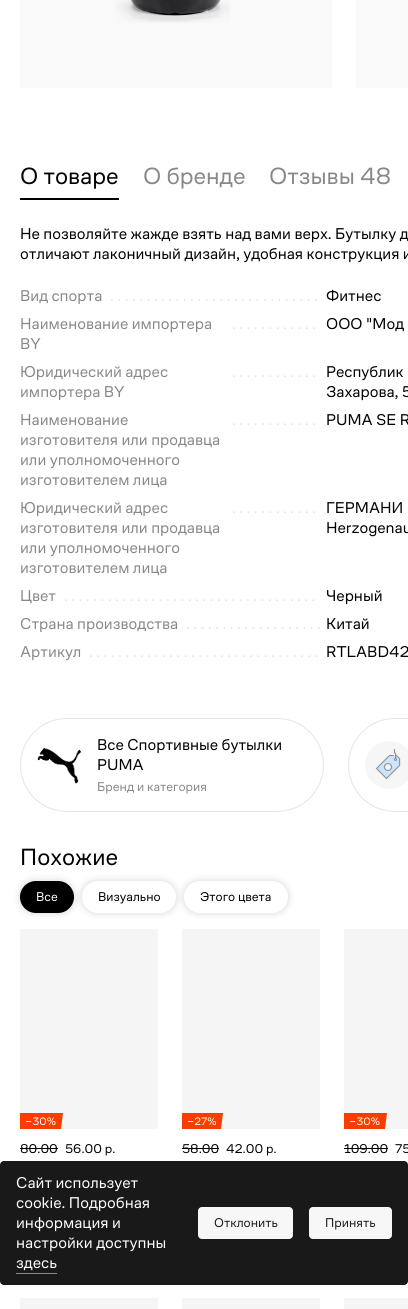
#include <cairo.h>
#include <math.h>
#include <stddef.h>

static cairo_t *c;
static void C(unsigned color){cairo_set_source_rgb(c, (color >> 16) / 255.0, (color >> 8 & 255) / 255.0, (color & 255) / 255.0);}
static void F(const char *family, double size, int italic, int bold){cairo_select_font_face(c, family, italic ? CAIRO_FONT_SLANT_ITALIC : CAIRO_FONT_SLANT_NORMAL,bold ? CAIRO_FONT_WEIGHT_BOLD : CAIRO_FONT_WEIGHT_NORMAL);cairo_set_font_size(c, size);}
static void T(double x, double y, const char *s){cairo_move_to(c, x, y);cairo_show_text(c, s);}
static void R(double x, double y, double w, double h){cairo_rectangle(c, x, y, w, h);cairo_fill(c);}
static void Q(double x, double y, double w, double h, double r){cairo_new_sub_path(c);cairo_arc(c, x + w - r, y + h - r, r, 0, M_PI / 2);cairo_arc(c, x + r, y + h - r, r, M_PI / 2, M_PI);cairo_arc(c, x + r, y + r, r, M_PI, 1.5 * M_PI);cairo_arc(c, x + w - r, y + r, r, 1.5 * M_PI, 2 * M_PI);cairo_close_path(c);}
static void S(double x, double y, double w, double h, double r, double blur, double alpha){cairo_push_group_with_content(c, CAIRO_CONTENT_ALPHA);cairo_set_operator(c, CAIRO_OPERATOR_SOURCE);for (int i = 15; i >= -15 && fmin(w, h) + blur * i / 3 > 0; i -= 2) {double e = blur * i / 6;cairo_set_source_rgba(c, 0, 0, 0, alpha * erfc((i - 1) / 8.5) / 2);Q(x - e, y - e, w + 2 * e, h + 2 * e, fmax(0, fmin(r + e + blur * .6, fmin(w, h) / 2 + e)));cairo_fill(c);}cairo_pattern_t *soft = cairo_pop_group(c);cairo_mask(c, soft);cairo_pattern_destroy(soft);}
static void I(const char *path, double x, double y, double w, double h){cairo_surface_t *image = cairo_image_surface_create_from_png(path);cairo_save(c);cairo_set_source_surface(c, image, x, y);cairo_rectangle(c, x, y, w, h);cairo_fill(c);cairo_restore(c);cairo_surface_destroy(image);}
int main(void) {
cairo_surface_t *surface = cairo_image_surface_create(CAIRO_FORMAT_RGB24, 408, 1309);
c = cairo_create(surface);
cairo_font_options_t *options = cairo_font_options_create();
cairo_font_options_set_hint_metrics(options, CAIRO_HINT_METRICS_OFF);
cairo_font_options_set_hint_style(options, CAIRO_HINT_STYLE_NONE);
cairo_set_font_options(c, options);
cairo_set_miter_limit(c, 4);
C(0xffffff);
cairo_paint(c);
C(0xf9f9f9);
R(20,0,312,88);
I("1.png",115,0,115,23);
R(356,0,52,88);
C(0x000000);
R(20,198,99,2);
F("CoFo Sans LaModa",24,0,0);
T(20,184,"О товаре");
C(0x888888);
T(143,184,"О бренде");
T(269,184,"Отзывы 48");
F("CoFo Sans LaModa",16,0,0);
C(0x000000);
T(20,239,"Не позволяйте жажде взять над вами верх. Бутылку д");
T(20,259,"отличают лаконичный дизайн, удобная конструкция и");
C(0x888888);
T(20,301,"Вид спорта");
C(0xe5e5e5);
T(110,301,". . . . . . . . . . . . . . . . . . . . . . . . . . . . .");
C(0x000000);
T(326,301,"Фитнес");
C(0x888888);
T(20,329,"Наименование импортера");
T(20,349,"BY");
C(0xe5e5e5);
T(232,329,". . . . . . . . . . . .");
C(0x000000);
T(326,329,"ООО \"Мод");
C(0x888888);
T(20,377,"Юридический адрес");
T(20,397,"импортера BY");
C(0xe5e5e5);
T(232,377,". . . . . . . . . . . .");
C(0x000000);
T(326,377,"Республик");
T(326,397,"Захарова, 5");
C(0x888888);
T(20,425,"Наименование");
T(20,445,"изготовителя или продавца");
T(20,465,"или уполномоченного");
T(20,485,"изготовителем лица");
C(0xe5e5e5);
T(232,425,". . . . . . . . . . . .");
C(0x000000);
T(326,425,"PUMA SE R");
C(0x888888);
T(20,513,"Юридический адрес");
T(20,533,"изготовителя или продавца");
T(20,553,"или уполномоченного");
T(20,573,"изготовителем лица");
C(0xe5e5e5);
T(232,513,". . . . . . . . . . . .");
C(0x000000);
T(326,513,"ГЕРМАНИ");
T(326,533,"Herzogenau");
C(0x888888);
T(20,601,"Цвет");
C(0xe5e5e5);
T(64,601,". . . . . . . . . . . . . . . . . . . . . . . . . . . . . . . . . . .");
C(0x000000);
T(326,601,"Черный");
C(0x888888);
T(20,629,"Страна производства");
C(0xe5e5e5);
T(186,629,". . . . . . . . . . . . . . . . . . .");
C(0x000000);
T(326,629,"Китай");
C(0x888888);
T(20,657,"Артикул");
C(0xe5e5e5);
T(89,657,". . . . . . . . . . . . . . . . . . . . . . . . . . . . . . . .");
C(0x000000);
T(326,657,"RTLABD42");
Q(20.5,718.5,303,93,46.5);
C(0xe5e5e5);
cairo_set_line_width(c,1);
cairo_stroke(c);
I("2.png",37,747,45,37);
C(0x000000);
T(97,750,"Все Спортивные бутылки");
T(97,770,"PUMA");
F("CoFo Sans LaModa",13,0,0);
C(0x888888);
T(97,791,"Бренд и категория");
Q(348.5,718.5,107,93,46.5);
C(0xe5e5e5);
cairo_stroke(c);
I("3.png",365,741,43,48);
F("CoFo Sans LaModa",24,0,0);
C(0x000000);
T(20,865,"Похожие");
C(0x000000);
S(20,881,54,32,16,4,.16);
C(0x000000);
Q(20,881,54,32,16);
cairo_fill(c);
F("CoFo Sans LaModa",13,0,0);
C(0xffffff);
T(36,901,"Все");
C(0x000000);
S(82,881,94,32,16,4,.16);
C(0xffffff);
Q(82,881,94,32,16);
cairo_fill(c);
C(0x000000);
T(98,901,"Визуально");
C(0x000000);
S(184,881,104,32,16,4,.16);
C(0xffffff);
Q(184,881,104,32,16);
cairo_fill(c);
C(0x000000);
T(200,901,"Этого цвета");
C(0xf5f5f5);
R(20,929,138,200);
cairo_save(c);
cairo_rectangle(c,20,929,138,200);
cairo_clip(c);
C(0xf93c00);
cairo_new_path(c);
cairo_move_to(c,19,1113);
cairo_line_to(c,63,1113);
cairo_line_to(c,61,1129);
cairo_line_to(c,17,1129);
cairo_close_path(c);
cairo_fill(c);
cairo_restore(c);
F("CoFo Sans LaModa",11,0,0);
C(0xffffff);
T(25,1125,"−30%");
F("CoFo Sans LaModa",13,0,0);
C(0x000000);
T(20,1153,"80.00");
R(20,1148,38,1);
T(65,1153,"56.00 р.");
C(0xf5f5f5);
R(182,929,138,200);
cairo_save(c);
cairo_rectangle(c,182,929,138,200);
cairo_clip(c);
C(0xf93c00);
cairo_new_path(c);
cairo_move_to(c,181,1113);
cairo_line_to(c,223,1113);
cairo_line_to(c,221,1129);
cairo_line_to(c,179,1129);
cairo_close_path(c);
cairo_fill(c);
cairo_restore(c);
F("CoFo Sans LaModa",11,0,0);
C(0xffffff);
T(187,1125,"−27%");
F("CoFo Sans LaModa",13,0,0);
C(0x000000);
T(182,1153,"58.00");
R(182,1148,37,1);
T(226,1153,"42.00 р.");
C(0xf5f5f5);
R(344,929,64,200);
cairo_save(c);
cairo_rectangle(c,344,929,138,200);
cairo_clip(c);
C(0xf93c00);
cairo_new_path(c);
cairo_move_to(c,343,1113);
cairo_line_to(c,387,1113);
cairo_line_to(c,385,1129);
cairo_line_to(c,341,1129);
cairo_close_path(c);
cairo_fill(c);
cairo_restore(c);
F("CoFo Sans LaModa",11,0,0);
C(0xffffff);
T(349,1125,"−30%");
F("CoFo Sans LaModa",13,0,0);
C(0x000000);
T(344,1153,"109.00");
R(344,1148,44,1);
T(395,1153,"75");
C(0xf5f5f5);
R(20,1298,138,11);
R(182,1298,138,11);
R(344,1298,64,11);
cairo_set_source_rgba(c,0,0,0,0.9);
Q(0,1161,408,124,4);
cairo_fill(c);
F("CoFo Sans LaModa",16,0,0);
C(0xffffff);
T(16,1188,"Сайт использует");
T(16,1208,"cookie. Подробная");
T(16,1228,"информация и");
T(16,1248,"настройки доступны");
T(16,1268,"здесь");
C(0x888888);
R(16,1273,41,1);
C(0xf7f7f7);
Q(198.5,1207.5,94,31,3.5);
cairo_fill_preserve(c);
cairo_stroke(c);
F("CoFo Sans LaModa",13,0,0);
C(0x1c1c1e);
T(214,1227,"Отклонить");
C(0xf7f7f7);
Q(309.5,1207.5,82,31,3.5);
cairo_fill_preserve(c);
cairo_stroke(c);
C(0x1c1c1e);
T(325,1227,"Принять");
cairo_surface_write_to_png(surface, "o.png");
cairo_font_options_destroy(options);
cairo_destroy(c);
cairo_surface_destroy(surface);
return 0;
}
